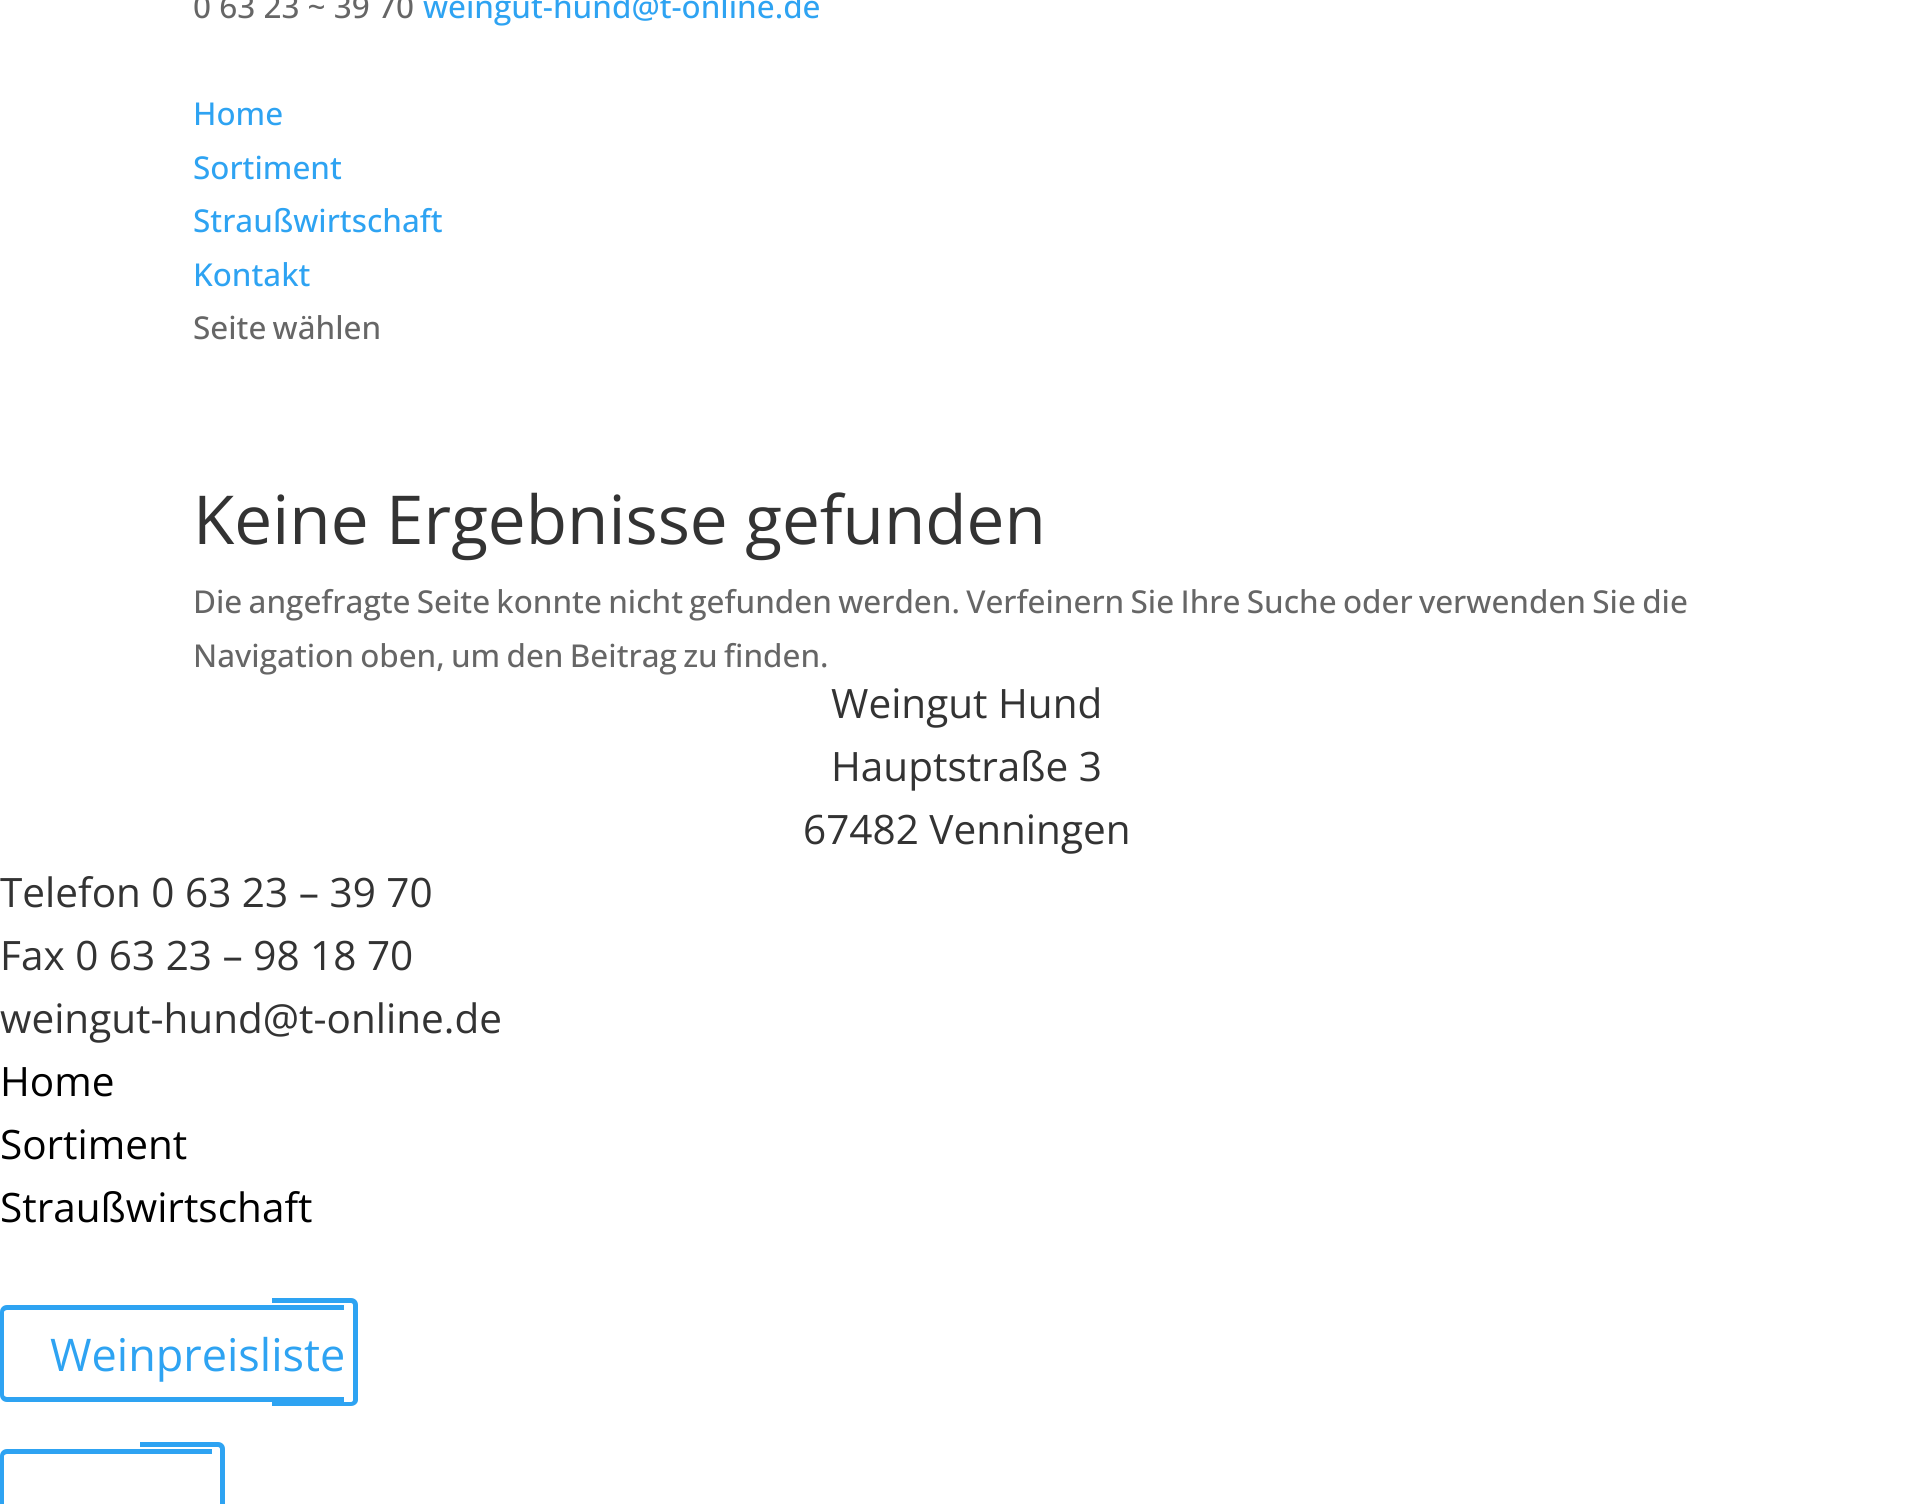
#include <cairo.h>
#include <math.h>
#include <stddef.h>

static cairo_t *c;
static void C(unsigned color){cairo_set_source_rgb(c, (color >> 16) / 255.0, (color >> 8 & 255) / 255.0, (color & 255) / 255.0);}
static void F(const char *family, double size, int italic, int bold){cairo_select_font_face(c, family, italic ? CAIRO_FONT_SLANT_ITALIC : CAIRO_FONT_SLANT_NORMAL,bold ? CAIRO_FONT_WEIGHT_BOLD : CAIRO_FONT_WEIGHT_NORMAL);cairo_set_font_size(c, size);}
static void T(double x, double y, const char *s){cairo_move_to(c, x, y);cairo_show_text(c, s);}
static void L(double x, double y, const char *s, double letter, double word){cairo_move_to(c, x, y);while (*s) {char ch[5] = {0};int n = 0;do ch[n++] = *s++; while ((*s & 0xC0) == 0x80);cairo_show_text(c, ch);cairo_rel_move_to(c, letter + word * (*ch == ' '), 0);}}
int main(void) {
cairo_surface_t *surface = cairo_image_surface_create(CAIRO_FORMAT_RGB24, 1931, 1504);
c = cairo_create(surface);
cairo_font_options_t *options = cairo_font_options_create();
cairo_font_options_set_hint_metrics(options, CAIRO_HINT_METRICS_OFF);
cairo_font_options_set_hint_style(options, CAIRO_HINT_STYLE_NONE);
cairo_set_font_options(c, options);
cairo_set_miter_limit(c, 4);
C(0xffffff);
cairo_paint(c);
F("Open Sans Medium",31.5,0,0);
C(0x666666);
T(193,18,"0 63 23 ~ 39 70");
C(0x2ea3f2);
T(423,18,"weingut-hund@t-online.de");
T(193,125,"Home");
T(193,179,"Sortiment");
T(193,232,"Straußwirtschaft");
T(193,286,"Kontakt");
C(0x666666);
L(193,339,"Seite wählen",0,-1.9);
F("Open Sans",67.5,0,0);
C(0x333333);
T(193,544,"Keine Ergebnisse gefunden");
F("Open Sans Medium",31.5,0,0);
C(0x666666);
L(193,613,"Die angefragte Seite konnte nicht gefunden werden. Verfeinern Sie Ihre Suche oder verwenden Sie die",0,-1.9);
L(193,667,"Navigation oben, um den Beitrag zu finden.",0,-1.9);
F("Open Sans",40.5,0,0);
C(0x333333);
T(831,718,"Weingut Hund");
T(831,781,"Hauptstraße 3");
T(803,844,"67482 Venningen");
T(0,907,"Telefon 0 63 23 – 39 70");
T(0,970,"Fax 0 63 23 – 98 18 70");
T(0,1033,"weingut-hund@t-online.de");
C(0x000000);
T(0,1096,"Home");
T(0,1159,"Sortiment");
T(0,1222,"Straußwirtschaft");
C(0x2ea3f2);
cairo_set_fill_rule(c,CAIRO_FILL_RULE_EVEN_ODD);
cairo_new_path(c);
cairo_move_to(c,7,1305);
cairo_line_to(c,344,1305);
cairo_line_to(c,344,1402);
cairo_line_to(c,7,1402);
cairo_curve_to(c,3,1402,0,1399,0,1395);
cairo_line_to(c,0,1312);
cairo_curve_to(c,0,1308,3,1305,7,1305);
cairo_close_path(c);
cairo_move_to(c,7,1310);
cairo_line_to(c,344,1310);
cairo_line_to(c,344,1397);
cairo_line_to(c,7,1397);
cairo_curve_to(c,6,1397,4,1396,4,1395);
cairo_line_to(c,4,1312);
cairo_curve_to(c,4,1311,6,1310,7,1310);
cairo_close_path(c);
cairo_fill(c);
cairo_new_path(c);
cairo_move_to(c,272,1298);
cairo_line_to(c,351,1298);
cairo_curve_to(c,355,1298,358,1301,358,1305);
cairo_line_to(c,358,1400);
cairo_curve_to(c,358,1403,355,1406,351,1406);
cairo_line_to(c,272,1406);
cairo_close_path(c);
cairo_move_to(c,272,1303);
cairo_line_to(c,351,1303);
cairo_curve_to(c,352,1303,353,1304,353,1305);
cairo_line_to(c,353,1400);
cairo_curve_to(c,353,1401,352,1402,351,1402);
cairo_line_to(c,272,1402);
cairo_close_path(c);
cairo_fill(c);
F("Open Sans",45,0,0);
T(50,1371,"Weinpreisliste");
cairo_new_path(c);
cairo_move_to(c,7,1449);
cairo_line_to(c,212,1449);
cairo_line_to(c,212,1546);
cairo_line_to(c,7,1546);
cairo_curve_to(c,3,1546,0,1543,0,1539);
cairo_line_to(c,0,1456);
cairo_curve_to(c,0,1452,3,1449,7,1449);
cairo_close_path(c);
cairo_move_to(c,7,1454);
cairo_line_to(c,212,1454);
cairo_line_to(c,212,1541);
cairo_line_to(c,7,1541);
cairo_curve_to(c,6,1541,4,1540,4,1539);
cairo_line_to(c,4,1456);
cairo_curve_to(c,4,1455,6,1454,7,1454);
cairo_close_path(c);
cairo_fill(c);
cairo_new_path(c);
cairo_move_to(c,140,1442);
cairo_line_to(c,218,1442);
cairo_curve_to(c,222,1442,225,1445,225,1449);
cairo_line_to(c,225,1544);
cairo_curve_to(c,225,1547,222,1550,218,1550);
cairo_line_to(c,140,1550);
cairo_close_path(c);
cairo_move_to(c,140,1447);
cairo_line_to(c,218,1447);
cairo_curve_to(c,219,1447,220,1448,220,1449);
cairo_line_to(c,220,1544);
cairo_curve_to(c,220,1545,219,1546,218,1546);
cairo_line_to(c,140,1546);
cairo_close_path(c);
cairo_fill(c);
cairo_surface_write_to_png(surface, "o.png");
cairo_font_options_destroy(options);
cairo_destroy(c);
cairo_surface_destroy(surface);
return 0;
}
